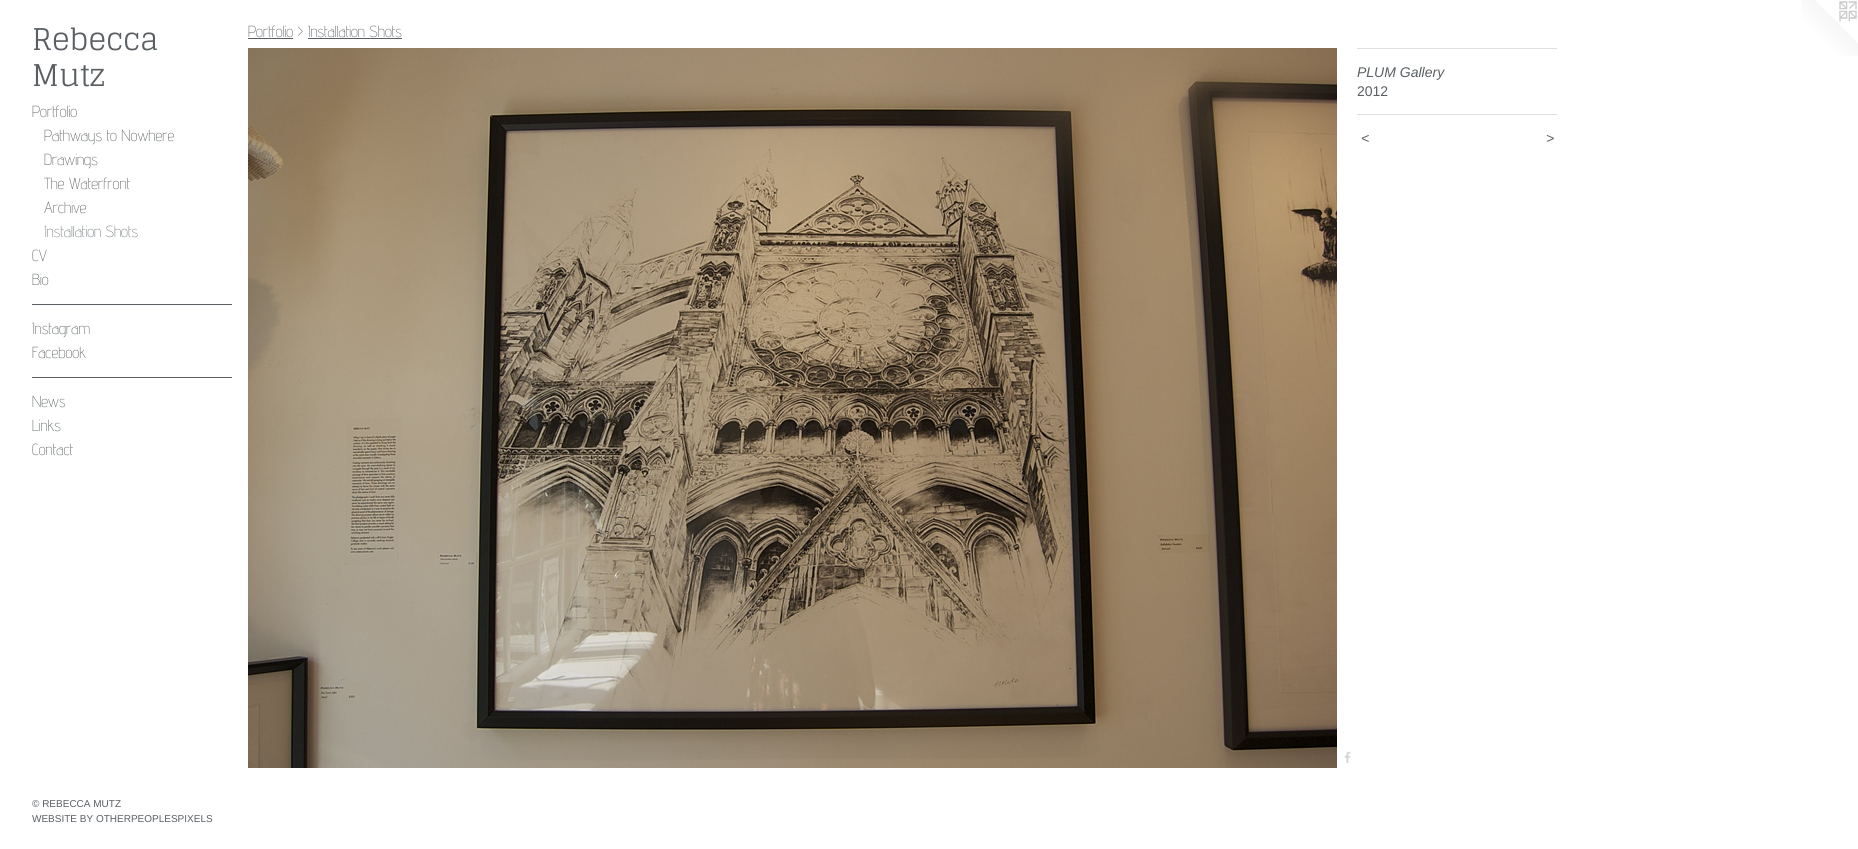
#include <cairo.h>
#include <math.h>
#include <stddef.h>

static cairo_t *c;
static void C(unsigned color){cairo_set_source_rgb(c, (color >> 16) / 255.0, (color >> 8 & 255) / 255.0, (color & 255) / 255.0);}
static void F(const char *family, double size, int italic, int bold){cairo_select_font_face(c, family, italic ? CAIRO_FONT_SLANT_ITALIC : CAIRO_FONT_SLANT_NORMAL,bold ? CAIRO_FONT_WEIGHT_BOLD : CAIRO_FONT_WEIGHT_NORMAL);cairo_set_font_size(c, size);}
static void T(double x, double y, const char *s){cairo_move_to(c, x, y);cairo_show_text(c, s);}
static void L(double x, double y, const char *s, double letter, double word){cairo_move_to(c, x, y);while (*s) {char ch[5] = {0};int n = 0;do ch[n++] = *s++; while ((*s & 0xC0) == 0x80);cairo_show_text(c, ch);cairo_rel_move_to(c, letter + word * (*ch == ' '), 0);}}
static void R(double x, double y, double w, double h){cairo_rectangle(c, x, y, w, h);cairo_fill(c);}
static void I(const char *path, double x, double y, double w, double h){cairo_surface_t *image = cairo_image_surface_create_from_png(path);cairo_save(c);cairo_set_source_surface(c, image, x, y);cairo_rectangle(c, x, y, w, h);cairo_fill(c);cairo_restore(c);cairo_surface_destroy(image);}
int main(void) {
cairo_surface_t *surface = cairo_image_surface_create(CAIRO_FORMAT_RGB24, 1858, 849);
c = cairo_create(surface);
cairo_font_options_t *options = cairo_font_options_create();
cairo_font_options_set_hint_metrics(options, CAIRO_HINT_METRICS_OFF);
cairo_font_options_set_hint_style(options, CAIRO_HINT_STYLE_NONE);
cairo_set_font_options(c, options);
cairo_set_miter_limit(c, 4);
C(0xffffff);
cairo_paint(c);
F("Glegoo",30,0,0);
C(0x5a5f63);
T(32,50,"Rebecca");
T(32,86,"Mutz");
F("Advent Pro ExtraLight",16,0,0);
T(32,117,"Portfolio");
T(44,141,"Pathways to Nowhere");
T(44,165,"Drawings");
T(44,189,"The Waterfront");
T(44,213,"Archive");
C(0x72797e);
T(44,237,"Installation Shots");
C(0x5a5f63);
T(32,261,"CV");
T(32,285,"Bio");
R(32,304,200,1);
T(32,334,"Instagram");
T(32,358,"Facebook");
R(32,377,200,1);
T(32,407,"News");
T(32,431,"Links");
T(32,455,"Contact");
F("Liberation Sans",10,0,0);
T(32,807,"© REBECCA MUTZ");
T(32,822,"WEBSITE BY OTHERPEOPLESPIXELS");
F("Advent Pro ExtraLight",16,0,0);
T(248,37,"Portfolio > Installation Shots");
R(248,38,45,1);
R(308,38,94,1);
I("1.png",248,48,1089,720);
I("2.png",1344,751,7,12);
C(0xdedfe0);
R(1357,48,200,1);
F("Liberation Sans",14,1,0);
C(0x5a5f63);
T(1357,77,"PLUM Gallery");
F("Liberation Sans",14,0,0);
T(1357,96,"2012");
C(0xdedfe0);
R(1357,114,200,1);
F("Liberation Sans",14,1,0);
C(0x5a5f63);
L(1361,143,"<",1,0);
L(1546,143,">",1,0);
I("3.png",1802,0,56,56);
cairo_surface_write_to_png(surface, "o.png");
cairo_font_options_destroy(options);
cairo_destroy(c);
cairo_surface_destroy(surface);
return 0;
}
